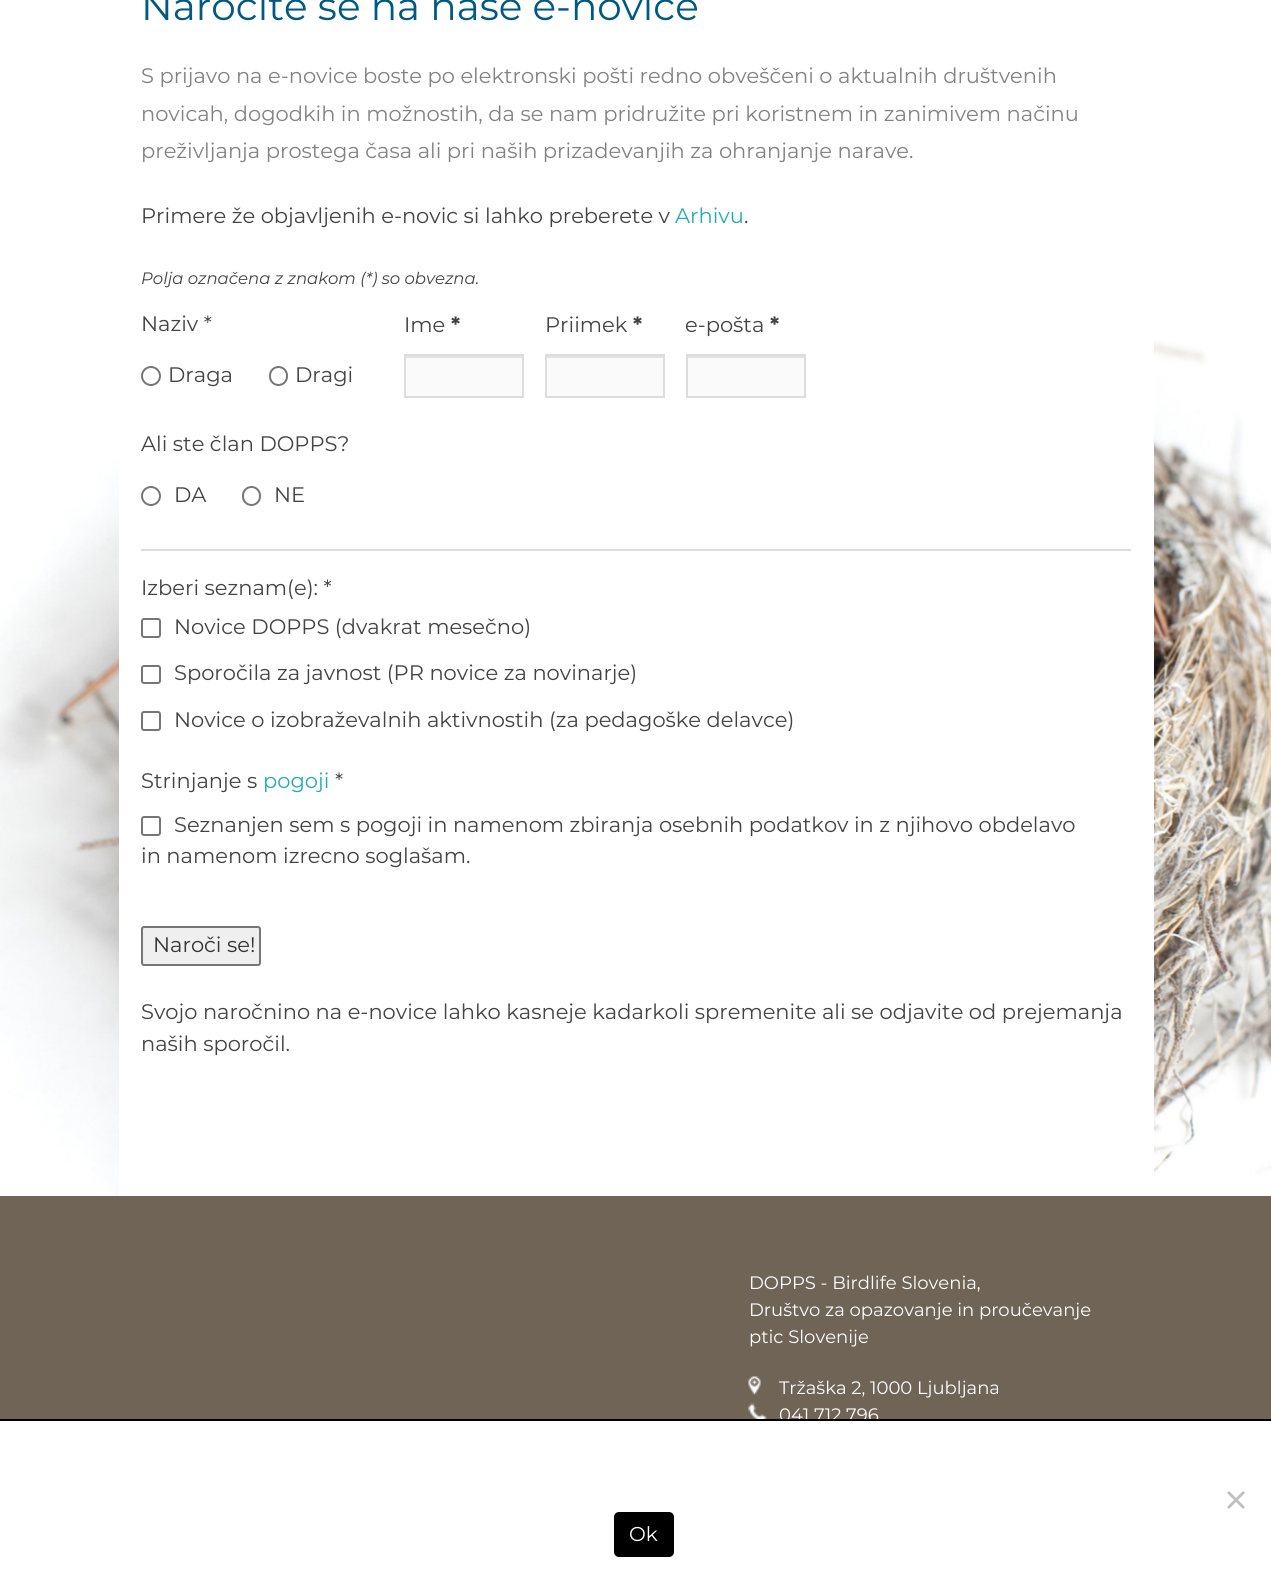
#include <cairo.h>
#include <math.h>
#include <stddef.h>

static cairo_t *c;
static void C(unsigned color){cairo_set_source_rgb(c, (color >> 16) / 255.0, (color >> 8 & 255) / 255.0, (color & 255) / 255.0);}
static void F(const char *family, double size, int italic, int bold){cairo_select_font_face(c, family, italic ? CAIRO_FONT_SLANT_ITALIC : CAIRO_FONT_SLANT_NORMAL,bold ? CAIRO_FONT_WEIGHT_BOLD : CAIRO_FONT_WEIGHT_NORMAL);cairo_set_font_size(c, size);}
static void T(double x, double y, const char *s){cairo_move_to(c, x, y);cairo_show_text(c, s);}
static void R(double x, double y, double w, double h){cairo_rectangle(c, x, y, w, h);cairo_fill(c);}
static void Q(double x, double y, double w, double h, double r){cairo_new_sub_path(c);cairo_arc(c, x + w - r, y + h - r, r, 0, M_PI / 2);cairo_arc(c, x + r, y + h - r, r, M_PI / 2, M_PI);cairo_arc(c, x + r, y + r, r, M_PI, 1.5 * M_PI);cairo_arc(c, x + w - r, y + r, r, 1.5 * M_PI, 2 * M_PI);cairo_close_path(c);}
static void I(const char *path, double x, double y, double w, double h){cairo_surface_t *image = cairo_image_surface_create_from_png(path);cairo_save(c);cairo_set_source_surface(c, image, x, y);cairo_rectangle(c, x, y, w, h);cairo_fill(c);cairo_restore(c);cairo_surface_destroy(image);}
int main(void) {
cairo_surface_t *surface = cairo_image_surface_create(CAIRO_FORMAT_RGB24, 1271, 1579);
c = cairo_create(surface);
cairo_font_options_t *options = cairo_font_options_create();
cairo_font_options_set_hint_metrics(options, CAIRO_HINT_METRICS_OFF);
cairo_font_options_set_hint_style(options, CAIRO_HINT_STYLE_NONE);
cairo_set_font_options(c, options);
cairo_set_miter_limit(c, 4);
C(0xffffff);
cairo_paint(c);
I("1.png",0,204,1271,992);
C(0xffffff);
R(119,204,1035,992);
F("Montserrat",39,0,0);
C(0x005983);
T(141,20,"Naročite se na naše e-novice");
F("Montserrat",21,0,0);
C(0x828282);
T(141,83,"S prijavo na e-novice boste po elektronski pošti redno obveščeni o aktualnih društvenih");
T(141,121,"novicah, dogodkih in možnostih, da se nam pridružite pri koristnem in zanimivem načinu");
T(141,158,"preživljanja prostega časa ali pri naših prizadevanjih za ohranjanje narave.");
C(0x434343);
T(141,223,"Primere že objavljenih e-novic si lahko preberete v");
C(0x21adb1);
T(675,223,"Arhivu");
C(0x434343);
T(744,223,".");
F("Montserrat Thin",16.5,1,0);
T(141,284,"Polja označena z znakom (*) so obvezna.");
F("Montserrat",21,0,0);
T(141,331,"Naziv *");
cairo_new_path(c);
cairo_arc(c,151,376,9,0,2 * M_PI);
C(0x767676);
cairo_stroke(c);
C(0x434343);
T(168,382,"Draga");
Q(270,367,17,18,8.5);
C(0x767676);
cairo_stroke(c);
C(0x434343);
T(295,382,"Dragi");
T(404,332,"Ime");
F("Montserrat",21,0,1);
T(451,332,"*");
C(0xfafafa);
R(406,358,116,38);
C(0xe1e1e1);
R(405,356,117,2);
cairo_rectangle(c,405,355,118,42);
C(0xdddddd);
cairo_stroke(c);
F("Montserrat",21,0,0);
C(0x434343);
T(545,332,"Priimek");
F("Montserrat",21,0,1);
T(633,332,"*");
C(0xfafafa);
R(547,358,116,38);
C(0xe1e1e1);
R(546,356,117,2);
cairo_rectangle(c,546,355,118,42);
C(0xdddddd);
cairo_stroke(c);
F("Montserrat",21,0,0);
C(0x434343);
T(685,332,"e-pošta");
F("Montserrat",21,0,1);
T(770,332,"*");
C(0xfafafa);
R(688,358,116,38);
C(0xe1e1e1);
R(687,356,117,2);
cairo_rectangle(c,687,355,118,42);
C(0xdddddd);
cairo_stroke(c);
F("Montserrat",21,0,0);
C(0x434343);
T(141,451,"Ali ste član DOPPS?");
cairo_new_path(c);
cairo_arc(c,151,496,9,0,2 * M_PI);
C(0x767676);
cairo_stroke(c);
C(0x434343);
T(174,502,"DA");
Q(243,487,17,18,8.5);
C(0x767676);
cairo_stroke(c);
C(0x434343);
T(274,502,"NE");
C(0xdddddd);
R(141,549,990,2);
C(0x434343);
T(141,595,"Izberi seznam(e): *");
Q(142,619,18,18,2);
C(0x767676);
cairo_stroke(c);
C(0x434343);
T(174,634,"Novice DOPPS (dvakrat mesečno)");
Q(142,666,18,17,2);
C(0x767676);
cairo_stroke(c);
C(0x434343);
T(174,680,"Sporočila za javnost (PR novice za novinarje)");
Q(142,712,18,18,2);
C(0x767676);
cairo_stroke(c);
C(0x434343);
T(174,727,"Novice o izobraževalnih aktivnostih (za pedagoške delavce)");
T(141,788,"Strinjanje s");
C(0x21adb1);
T(263,788,"pogoji");
C(0x434343);
T(335,788,"*");
Q(142,817,18,18,2);
C(0x767676);
cairo_stroke(c);
C(0x434343);
T(174,832,"Seznanjen sem s pogoji in namenom zbiranja osebnih podatkov in z njihovo obdelavo");
T(141,863,"in namenom izrecno soglašam.");
C(0xefefef);
Q(142,927,118,38,2);
cairo_fill_preserve(c);
C(0x767676);
cairo_stroke(c);
C(0x333333);
T(153,952,"Naroči se!");
C(0x434343);
T(141,1019,"Svojo naročnino na e-novice lahko kasneje kadarkoli spremenite ali se odjavite od prejemanja");
T(141,1051,"naših sporočil.");
C(0x706457);
R(0,1196,1271,223);
F("Montserrat",18,0,0);
C(0xffffff);
T(749,1289,"DOPPS - Birdlife Slovenia,");
T(749,1316,"Društvo za opazovanje in proučevanje");
T(749,1343,"ptic Slovenije");
I("2.png",748,1376,13,19);
T(779,1394,"Tržaška 2, 1000 Ljubljana");
I("3.png",748,1403,19,16);
T(779,1421,"041 712 796");
C(0x000000);
R(0,1419,1271,2);
C(0xc0c0c0);
cairo_new_path(c);
cairo_move_to(c,1243,1491);
cairo_line_to(c,1245,1493);
cairo_line_to(c,1229,1509);
cairo_line_to(c,1227,1507);
cairo_close_path(c);
cairo_fill(c);
cairo_new_path(c);
cairo_move_to(c,1227,1493);
cairo_line_to(c,1229,1491);
cairo_line_to(c,1245,1507);
cairo_line_to(c,1243,1509);
cairo_close_path(c);
cairo_fill(c);
C(0x000000);
Q(614,1512,60,45,5);
cairo_fill(c);
F("Montserrat",20,0,0);
C(0xffffff);
T(629,1541,"Ok");
cairo_surface_write_to_png(surface, "o.png");
cairo_font_options_destroy(options);
cairo_destroy(c);
cairo_surface_destroy(surface);
return 0;
}
